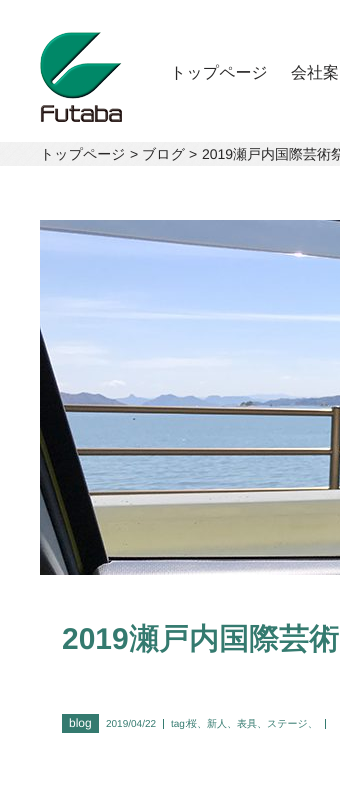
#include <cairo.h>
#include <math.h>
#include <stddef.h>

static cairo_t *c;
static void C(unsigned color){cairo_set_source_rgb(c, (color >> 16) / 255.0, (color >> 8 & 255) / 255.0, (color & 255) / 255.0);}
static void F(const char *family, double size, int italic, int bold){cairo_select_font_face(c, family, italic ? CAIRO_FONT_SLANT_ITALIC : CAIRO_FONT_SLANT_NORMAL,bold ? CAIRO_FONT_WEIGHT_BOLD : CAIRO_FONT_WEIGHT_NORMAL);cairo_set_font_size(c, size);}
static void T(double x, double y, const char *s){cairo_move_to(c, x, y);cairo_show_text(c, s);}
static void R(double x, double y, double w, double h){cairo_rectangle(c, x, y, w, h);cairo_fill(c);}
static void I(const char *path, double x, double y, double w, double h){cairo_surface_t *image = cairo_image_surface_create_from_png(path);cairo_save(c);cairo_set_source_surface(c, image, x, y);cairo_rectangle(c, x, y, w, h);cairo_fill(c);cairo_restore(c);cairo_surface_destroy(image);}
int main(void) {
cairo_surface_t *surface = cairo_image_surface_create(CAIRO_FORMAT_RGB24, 340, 811);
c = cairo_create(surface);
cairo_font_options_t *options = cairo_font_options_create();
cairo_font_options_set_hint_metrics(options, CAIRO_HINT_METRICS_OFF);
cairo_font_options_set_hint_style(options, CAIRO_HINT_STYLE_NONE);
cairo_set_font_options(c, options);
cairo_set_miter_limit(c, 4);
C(0xffffff);
cairo_paint(c);
I("1.png",40,32,82,90);
F("WenQuanYi Zen Hei Medium",16,0,0);
C(0x282727);
T(170,78,"トップページ");
T(291,78,"会社案");
I("2.png",0,142,340,24);
F("WenQuanYi Zen Hei Medium",14,0,0);
T(40,159,"トップページ");
F("Liberation Sans",14,0,0);
T(130,159,">");
F("WenQuanYi Zen Hei Medium",14,0,0);
T(142,159,"ブログ");
F("Liberation Sans",14,0,0);
T(189,159,">");
T(202,159,"2019");
F("WenQuanYi Zen Hei Medium",14,0,0);
T(233,159,"瀬戸内国際芸術祭");
I("3.png",40,220,300,355);
F("Liberation Sans",30,0,1);
C(0x347a6f);
T(62,649,"2019");
F("WenQuanYi Zen Hei",30,0,1);
T(129,649,"瀬戸内国際芸術");
R(62,714,37,19);
F("Liberation Sans",12,0,0);
C(0xffffff);
T(69,727,"blog");
C(0x347a6f);
R(163,719,1,10);
F("Liberation Sans",10,0,0);
T(106,727,"2019/04/22");
R(325,719,1,10);
T(171,727,"tag:");
F("WenQuanYi Zen Hei Medium",10,0,0);
T(187,727,"桜、新人、表具、ステージ、");
cairo_surface_write_to_png(surface, "o.png");
cairo_font_options_destroy(options);
cairo_destroy(c);
cairo_surface_destroy(surface);
return 0;
}
